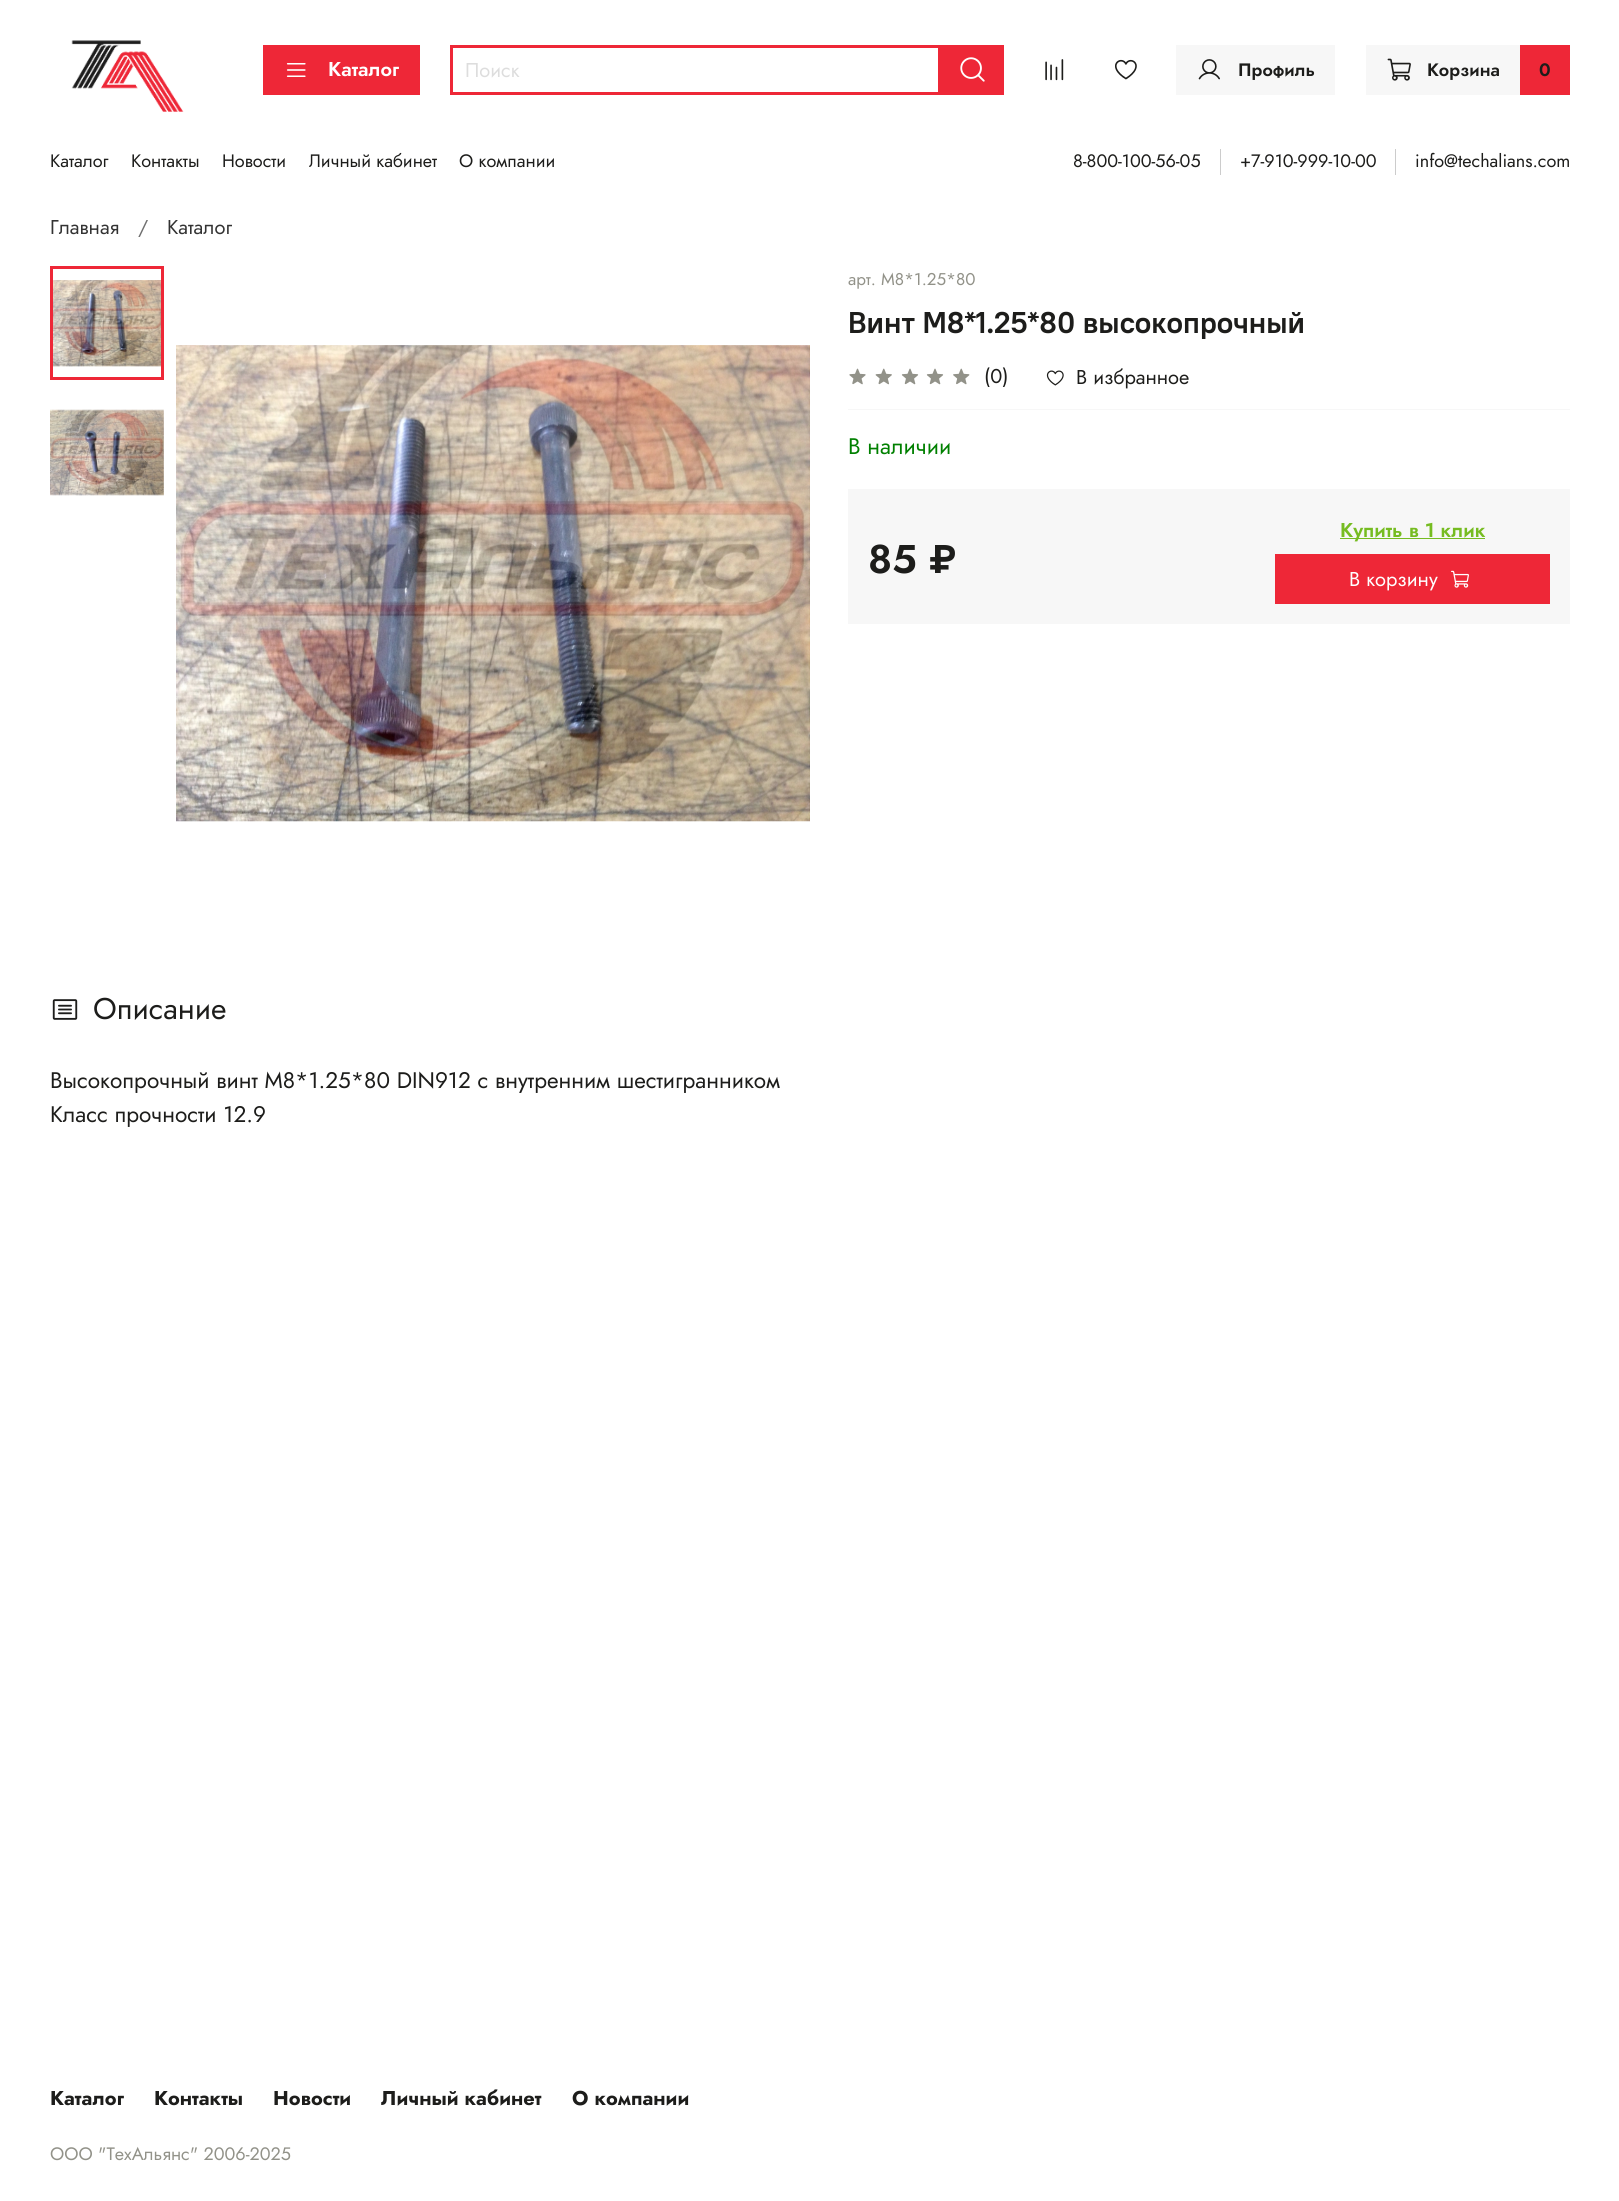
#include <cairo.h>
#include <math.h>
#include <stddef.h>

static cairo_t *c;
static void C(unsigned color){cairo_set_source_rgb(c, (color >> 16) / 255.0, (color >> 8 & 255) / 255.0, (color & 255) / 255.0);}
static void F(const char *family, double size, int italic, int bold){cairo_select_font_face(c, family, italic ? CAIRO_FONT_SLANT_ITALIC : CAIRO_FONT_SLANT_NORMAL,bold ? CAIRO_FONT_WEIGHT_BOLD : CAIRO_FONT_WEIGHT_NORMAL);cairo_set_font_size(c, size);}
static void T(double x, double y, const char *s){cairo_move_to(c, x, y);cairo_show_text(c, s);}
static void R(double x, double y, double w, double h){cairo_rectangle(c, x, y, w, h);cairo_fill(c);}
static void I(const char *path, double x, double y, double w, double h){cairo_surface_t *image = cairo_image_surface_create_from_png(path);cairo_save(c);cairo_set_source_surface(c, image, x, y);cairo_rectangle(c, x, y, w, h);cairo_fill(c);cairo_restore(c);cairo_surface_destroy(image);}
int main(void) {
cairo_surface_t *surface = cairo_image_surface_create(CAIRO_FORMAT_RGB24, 1619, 2201);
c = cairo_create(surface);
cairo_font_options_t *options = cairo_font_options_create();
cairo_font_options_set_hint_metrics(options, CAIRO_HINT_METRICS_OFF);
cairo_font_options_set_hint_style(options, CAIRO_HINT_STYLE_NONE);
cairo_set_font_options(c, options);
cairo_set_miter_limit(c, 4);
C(0xffffff);
cairo_paint(c);
I("1.png",71,40,113,72);
C(0xee2737);
R(263,45,157,50);
I("2.png",286,63,20,14);
F("Jost SemiBold",20,0,0);
C(0xffffff);
T(328,76,"Каталог");
cairo_rectangle(c,451.5,46.5,488,47);
C(0xee2737);
cairo_set_line_width(c,3);
cairo_stroke(c);
F("Jost",20,0,0);
C(0xdddddd);
T(465,77,"Поиск");
C(0xee2737);
R(941,45,63,50);
I("3.png",960,57,25,25);
I("4.png",1045,59,19,22);
I("5.png",1115,59,22,21);
C(0xf7f7f7);
R(1176,45,159,50);
I("6.png",1198,59,22,21);
F("Jost SemiBold",18,0,0);
C(0x1d1d1b);
T(1238,76,"Профиль");
C(0xf7f7f7);
R(1366,45,154,50);
I("7.png",1387,58,24,23);
C(0x1d1d1b);
T(1427,76,"Корзина");
C(0xee2737);
R(1520,45,50,50);
C(0x1d1d1b);
T(1539,76,"0");
F("Jost",18,0,0);
T(50,167,"Каталог");
T(131,167,"Контакты");
T(222,167,"Новости");
T(309,167,"Личный кабинет");
T(459,167,"О компании");
C(0xcccccc);
R(1220,149,1,26);
C(0x1d1d1b);
T(1073,167,"8-800-100-56-05");
C(0xcccccc);
R(1395,149,1,26);
C(0x1d1d1b);
T(1240,167,"+7-910-999-10-00");
T(1415,167,"info@techalians.com");
F("Jost",20,0,0);
C(0x333333);
T(50,234,"Главная");
C(0x707070);
T(138,234,"/");
C(0x333333);
T(167,234,"Каталог");
I("8.png",53,280,108,87);
cairo_rectangle(c,51.5,267.5,111,111);
C(0xee2737);
cairo_stroke(c);
I("9.png",50,409,114,87);
I("10.png",176,345,634,477);
F("Jost",17,0,0);
C(0x929289);
T(848,285,"арт. M8*1.25*80");
F("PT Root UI",30,0,1);
C(0x1d1d1b);
T(848,333,"Винт M8*1.25*80 высокопрочный");
C(0xf7f7f7);
R(848,409,722,1);
I("11.png",849,368,17,17);
I("12.png",875,368,17,17);
I("13.png",901,368,18,17);
I("13.png",926,368,18,17);
I("14.png",953,368,17,17);
F("Jost",20,0,0);
C(0x1d1d1b);
T(984,383,"(0)");
I("15.png",1046,370,18,16);
T(1076,384,"В избранное");
F("Jost",22.5,0,0);
C(0x008000);
T(848,454,"В наличии");
C(0xf7f7f7);
R(848,489,722,135);
F("Jost SemiBold",40,0,0);
C(0x1d1d1b);
T(868,573,"85 ₽");
C(0x76bc21);
R(1340,538,145,1);
F("Jost SemiBold",20,0,0);
T(1340,537,"Купить в 1 клик");
C(0xee2737);
R(1275,554,275,50);
F("Jost",20,0,0);
C(0xffffff);
T(1349,586,"В корзину");
I("16.png",1451,570,18,18);
I("17.png",52,999,26,21);
F("Jost",30,0,0);
C(0x1d1d1b);
T(93,1019,"Описание");
F("Jost",22.5,0,0);
T(50,1088,"Высокопрочный винт M8*1.25*80 DIN912 с внутренним шестигранником");
T(50,1122,"Класс прочности 12.9");
F("Jost",20,0,1);
T(50,2105,"Каталог");
T(154,2105,"Контакты");
T(273,2105,"Новости");
T(381,2105,"Личный кабинет");
T(572,2105,"О компании");
F("Jost",18,0,0);
C(0x929289);
T(50,2160,"ООО \"ТехАльянс\" 2006-2025");
cairo_surface_write_to_png(surface, "o.png");
cairo_font_options_destroy(options);
cairo_destroy(c);
cairo_surface_destroy(surface);
return 0;
}
